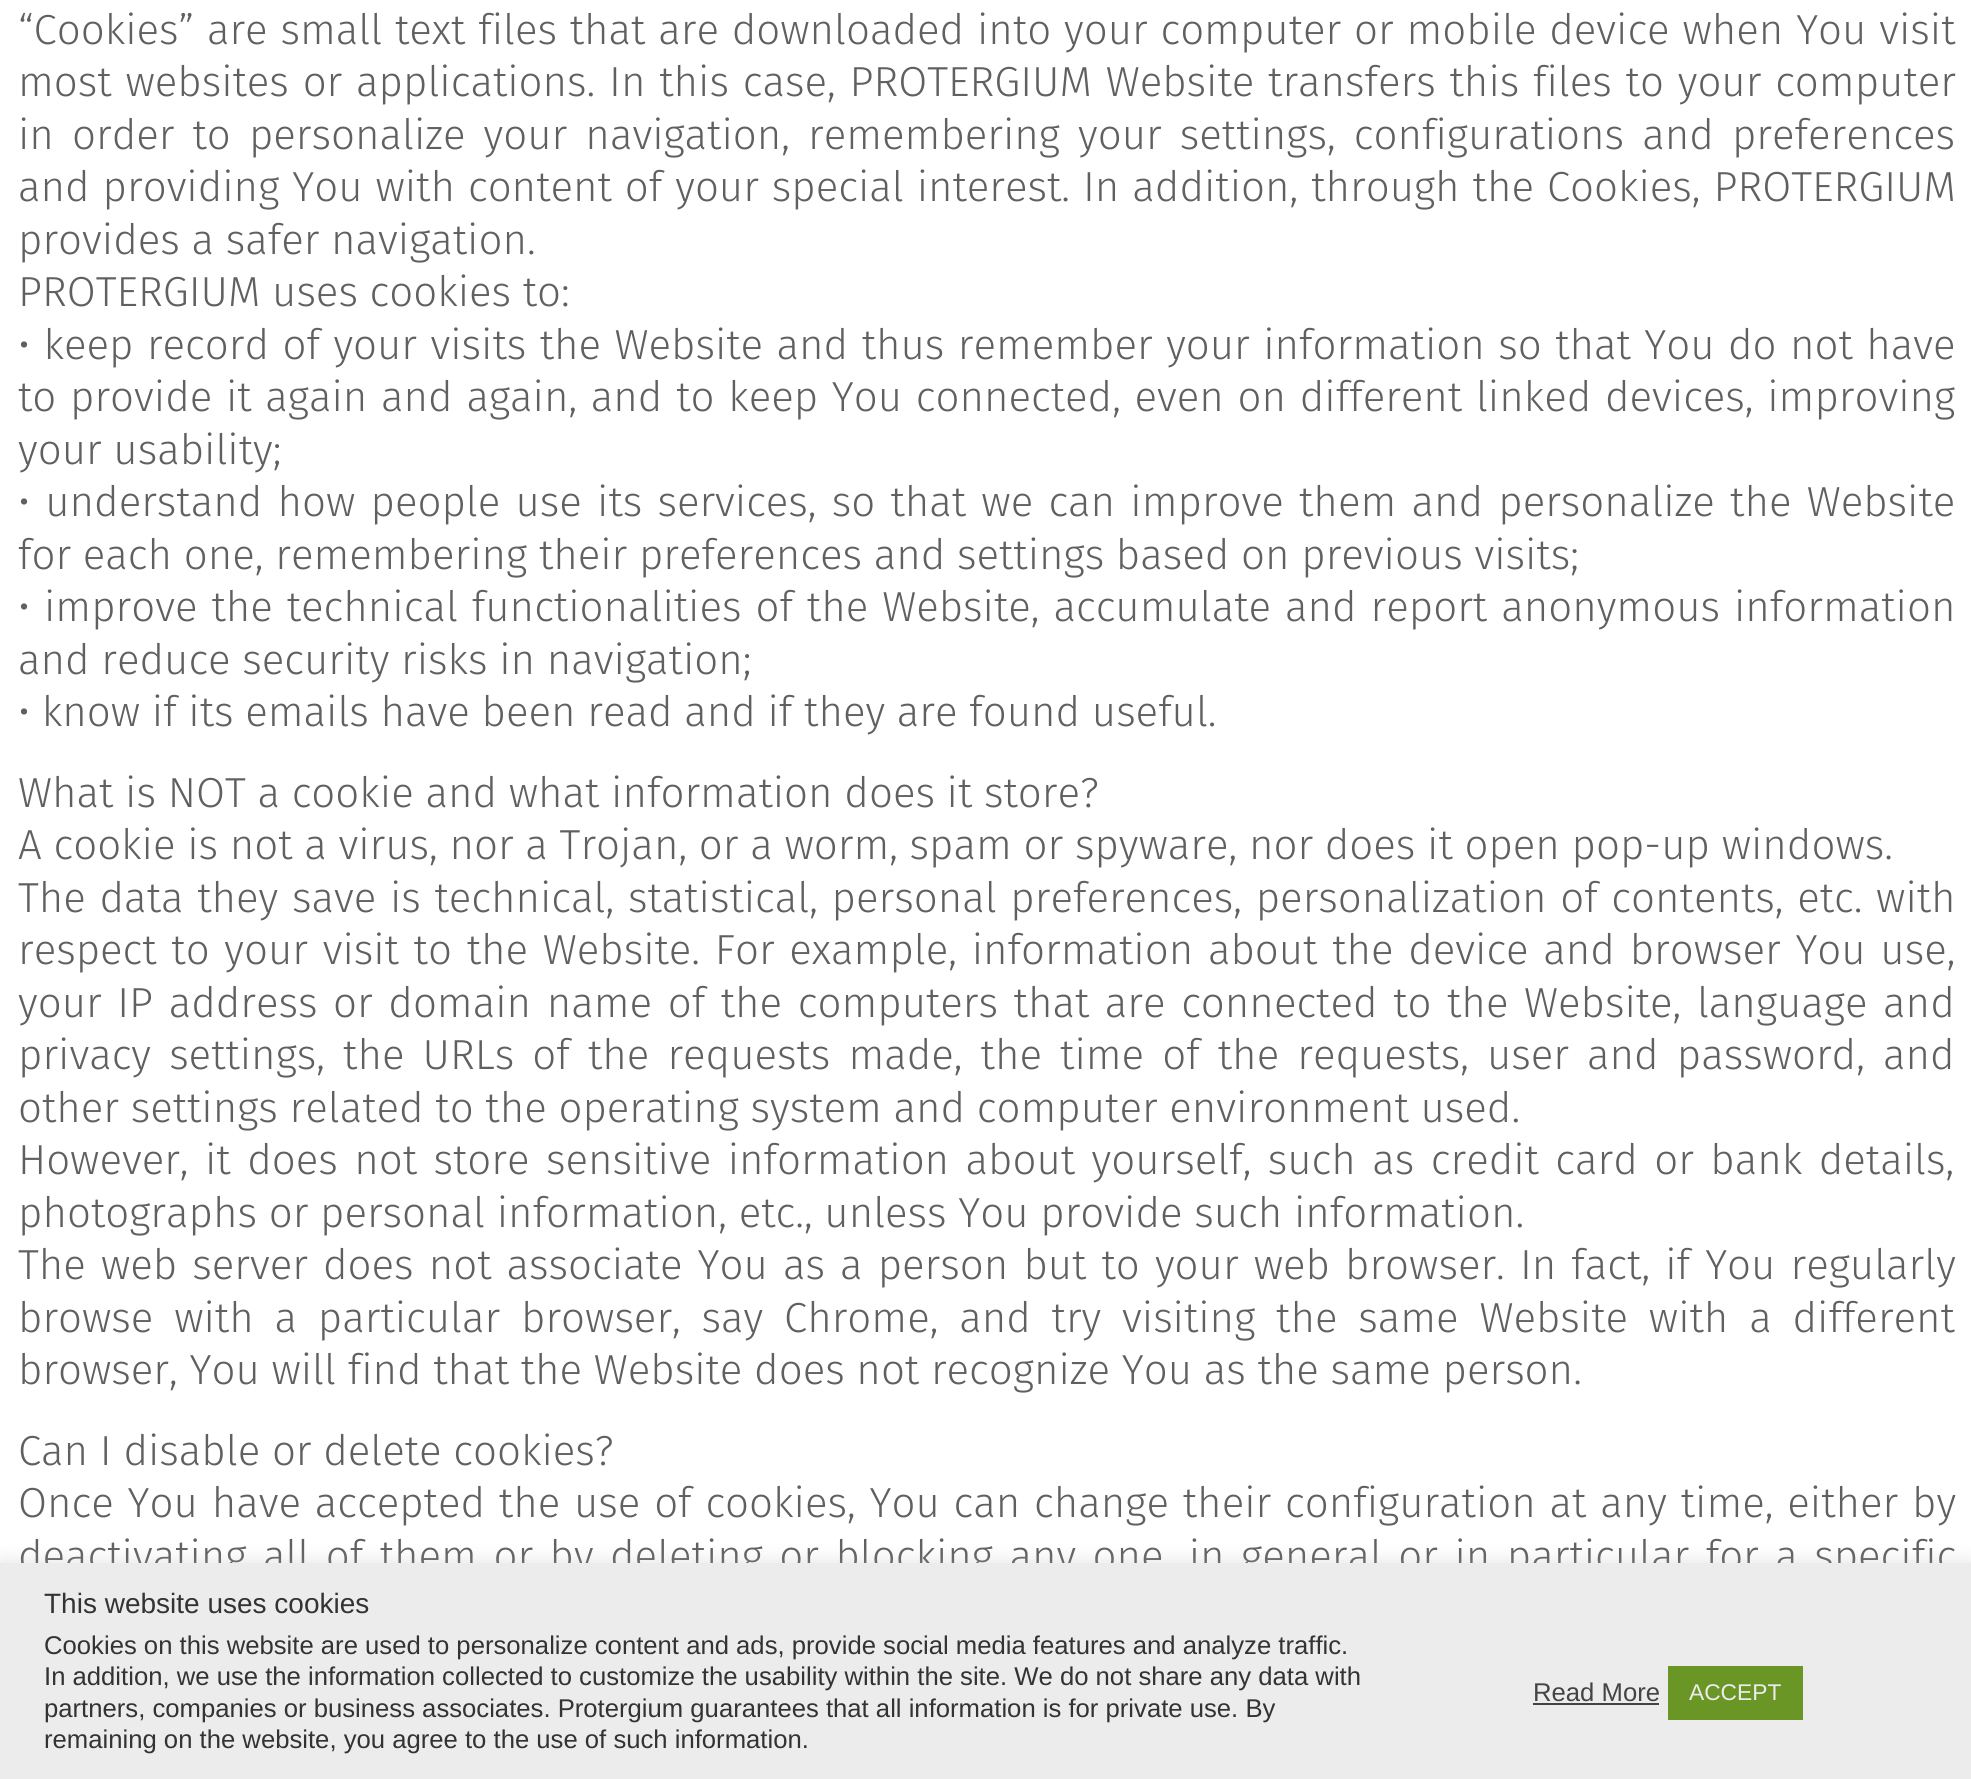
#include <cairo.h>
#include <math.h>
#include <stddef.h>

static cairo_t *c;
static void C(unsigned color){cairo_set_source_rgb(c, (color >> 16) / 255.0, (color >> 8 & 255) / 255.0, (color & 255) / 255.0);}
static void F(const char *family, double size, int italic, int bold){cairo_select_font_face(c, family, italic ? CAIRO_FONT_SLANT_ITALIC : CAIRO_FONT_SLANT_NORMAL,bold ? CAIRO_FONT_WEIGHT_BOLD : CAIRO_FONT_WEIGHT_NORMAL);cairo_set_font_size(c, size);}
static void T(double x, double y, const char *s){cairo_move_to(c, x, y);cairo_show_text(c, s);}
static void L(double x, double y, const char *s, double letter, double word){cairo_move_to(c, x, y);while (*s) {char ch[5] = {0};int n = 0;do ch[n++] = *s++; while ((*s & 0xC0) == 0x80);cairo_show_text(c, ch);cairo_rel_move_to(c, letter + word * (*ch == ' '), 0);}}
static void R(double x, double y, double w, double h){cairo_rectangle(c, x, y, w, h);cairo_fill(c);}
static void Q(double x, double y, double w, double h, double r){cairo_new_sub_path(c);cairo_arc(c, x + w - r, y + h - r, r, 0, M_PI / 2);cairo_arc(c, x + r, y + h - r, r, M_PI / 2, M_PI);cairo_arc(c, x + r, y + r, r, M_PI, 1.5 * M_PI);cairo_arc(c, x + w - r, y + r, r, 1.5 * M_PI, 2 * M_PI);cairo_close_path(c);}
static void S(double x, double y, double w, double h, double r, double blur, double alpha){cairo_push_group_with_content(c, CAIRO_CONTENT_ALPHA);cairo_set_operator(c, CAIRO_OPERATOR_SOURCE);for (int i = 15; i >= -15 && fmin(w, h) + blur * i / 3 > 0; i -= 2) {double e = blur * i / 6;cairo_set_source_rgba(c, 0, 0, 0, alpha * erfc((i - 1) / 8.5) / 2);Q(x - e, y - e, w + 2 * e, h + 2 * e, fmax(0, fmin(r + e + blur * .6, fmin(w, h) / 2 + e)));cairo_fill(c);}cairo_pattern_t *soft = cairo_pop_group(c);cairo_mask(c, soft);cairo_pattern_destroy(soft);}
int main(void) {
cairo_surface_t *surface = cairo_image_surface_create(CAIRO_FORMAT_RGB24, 1971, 1779);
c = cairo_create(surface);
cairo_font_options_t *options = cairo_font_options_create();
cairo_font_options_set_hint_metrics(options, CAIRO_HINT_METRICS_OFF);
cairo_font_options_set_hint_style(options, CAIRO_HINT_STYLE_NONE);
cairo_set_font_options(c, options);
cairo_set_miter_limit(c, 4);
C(0xffffff);
cairo_paint(c);
F("Fira Sans Light",42,0,0);
C(0x606060);
L(18,44,"“Cookies” are small text files that are downloaded into your computer or mobile device when You visit",0,1.1);
L(18,96,"most websites or applications. In this case, PROTERGIUM Website transfers this files to your computer",0,2.1);
L(18,149,"in order to personalize your navigation, remembering your settings, configurations and preferences",0,6.4);
L(18,201,"and providing You with content of your special interest. In addition, through the Cookies, PROTERGIUM",0,1.25);
T(18,254,"provides a safer navigation.");
T(18,306,"PROTERGIUM uses cookies to:");
L(18,359,"• keep record of your visits the Website and thus remember your information so that You do not have",0,1.75);
L(18,411,"to provide it again and again, and to keep You connected, even on different linked devices, improving",0,2);
T(18,464,"your usability;");
L(18,516,"• understand how people use its services, so that we can improve them and personalize the Website",0,3.5);
T(18,569,"for each one, remembering their preferences and settings based on previous visits;");
L(18,621,"• improve the technical functionalities of the Website, accumulate and report anonymous information",0,2.25);
T(18,674,"and reduce security risks in navigation;");
T(18,726,"• know if its emails have been read and if they are found useful.");
T(18,807,"What is NOT a cookie and what information does it store?");
T(18,859,"A cookie is not a virus, nor a Trojan, or a worm, spam or spyware, nor does it open pop-up windows.");
L(18,912,"The data they save is technical, statistical, personal preferences, personalization of contents, etc. with",0,2);
L(18,964,"respect to your visit to the Website. For example, information about the device and browser You use,",0,3);
L(18,1017,"your IP address or domain name of the computers that are connected to the Website, language and",0,3.9);
L(18,1069,"privacy settings, the URLs of the requests made, the time of the requests, user and password, and",0,6.4);
T(18,1122,"other settings related to the operating system and computer environment used.");
L(18,1174,"However, it does not store sensitive information about yourself, such as credit card or bank details,",0,4.75);
T(18,1227,"photographs or personal information, etc., unless You provide such information.");
L(18,1279,"The web server does not associate You as a person but to your web browser. In fact, if You regularly",0,3.4);
L(18,1332,"browse with a particular browser, say Chrome, and try visiting the same Website with a different",0,9.1);
T(18,1384,"browser, You will find that the Website does not recognize You as the same person.");
T(18,1465,"Can I disable or delete cookies?");
L(18,1517,"Once You have accepted the use of cookies, You can change their configuration at any time, either by",0,2.1);
L(18,1570,"deactivating all of them or by deleting or blocking any one, in general or in particular for a specific",0,4.75);
C(0xacabab);
S(0,1561,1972,217,0,9,.3);
C(0xececec);
R(0,1563,1971,216);
F("Liberation Sans",28,0,0);
C(0x333333);
T(44,1613,"This website uses cookies");
F("Liberation Sans",25.67,0,0);
T(44,1654,"Cookies on this website are used to personalize content and ads, provide social media features and analyze traffic.");
T(44,1685,"In addition, we use the information collected to customize the usability within the site. We do not share any data with");
T(44,1717,"partners, companies or business associates. Protergium guarantees that all information is for private use. By");
T(44,1748,"remaining on the website, you agree to the use of such information.");
C(0x444444);
T(1533,1701,"Read More");
R(1533,1703,126,2);
C(0x6a9626);
R(1668,1666,135,54);
F("Liberation Sans",22.75,0,0);
C(0xececec);
T(1689,1700,"ACCEPT");
cairo_surface_write_to_png(surface, "o.png");
cairo_font_options_destroy(options);
cairo_destroy(c);
cairo_surface_destroy(surface);
return 0;
}
